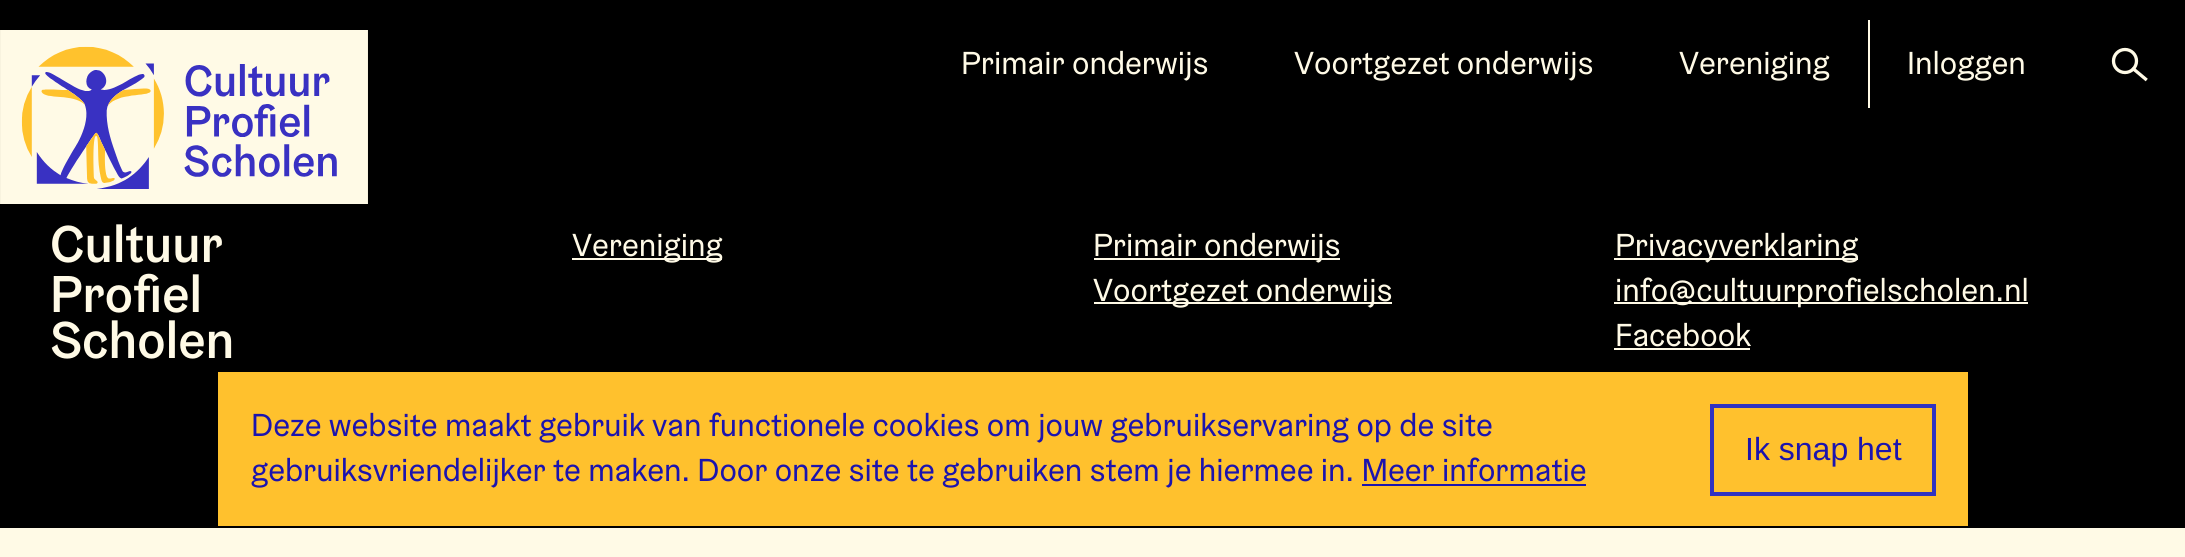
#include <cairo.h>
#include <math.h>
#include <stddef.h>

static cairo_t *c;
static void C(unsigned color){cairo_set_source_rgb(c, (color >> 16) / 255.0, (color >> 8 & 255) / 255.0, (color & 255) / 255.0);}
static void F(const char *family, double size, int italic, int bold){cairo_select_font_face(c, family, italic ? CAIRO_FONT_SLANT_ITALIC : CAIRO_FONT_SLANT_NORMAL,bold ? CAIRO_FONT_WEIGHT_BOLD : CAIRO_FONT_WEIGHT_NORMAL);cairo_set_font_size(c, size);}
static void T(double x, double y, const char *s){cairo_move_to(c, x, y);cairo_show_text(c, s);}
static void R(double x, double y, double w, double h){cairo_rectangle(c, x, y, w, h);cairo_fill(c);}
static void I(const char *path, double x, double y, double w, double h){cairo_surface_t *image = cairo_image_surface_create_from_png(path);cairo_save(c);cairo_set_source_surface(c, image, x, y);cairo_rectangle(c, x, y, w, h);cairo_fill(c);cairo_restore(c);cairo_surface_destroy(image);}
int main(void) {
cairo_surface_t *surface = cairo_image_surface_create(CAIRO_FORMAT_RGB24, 2185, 557);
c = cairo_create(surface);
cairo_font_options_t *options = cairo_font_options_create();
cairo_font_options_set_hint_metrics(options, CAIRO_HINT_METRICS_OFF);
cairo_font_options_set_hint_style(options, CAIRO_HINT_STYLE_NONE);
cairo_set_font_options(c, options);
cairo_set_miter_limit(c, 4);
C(0xfffae6);
cairo_paint(c);
C(0x000000);
R(0,0,2185,528);
I("1.png",0,30,368,174);
F("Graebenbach",32,0,0);
C(0xfffae6);
T(961,74,"Primair onderwijs");
T(1294,74,"Voortgezet onderwijs");
T(1679,74,"Vereniging");
R(1868,20,2,88);
T(1907,74,"Inloggen");
cairo_new_path(c);
cairo_arc(c,2125,61,11.5,0,2 * M_PI);
cairo_set_line_width(c,3.3);
cairo_stroke(c);
cairo_new_path(c);
cairo_move_to(c,2133.5,69);
cairo_line_to(c,2145.5,79);
cairo_set_line_cap(c,CAIRO_LINE_CAP_SQUARE);
cairo_stroke(c);
I("2.png",51,224,181,135);
R(572,258,150,2);
T(572,256,"Vereniging");
R(1094,258,246,2);
T(1093,256,"Primair onderwijs");
R(1094,302,298,2);
T(1093,301,"Voortgezet onderwijs");
R(1614,258,244,2);
T(1615,256,"Privacyverklaring");
R(1614,302,414,2);
T(1615,301,"info@cultuurprofielscholen.nl");
T(1615,346,"Facebook");
R(1614,348,136,2);
C(0xffc12d);
R(218,372,1750,154);
C(0x1c14ae);
T(251,436,"Deze website maakt gebruik van functionele cookies om jouw gebruikservaring op de site");
T(251,481,"gebruiksvriendelijker te maken. Door onze site te gebruiken stem je hiermee in. Meer informatie");
R(1362,484,224,2);
cairo_rectangle(c,1712,406,222,88);
C(0x3133c0);
cairo_set_line_width(c,4);
cairo_set_line_cap(c,CAIRO_LINE_CAP_BUTT);
cairo_stroke(c);
F("Liberation Sans",32,0,0);
C(0x1c14ae);
T(1745,460,"Ik snap het");
cairo_surface_write_to_png(surface, "o.png");
cairo_font_options_destroy(options);
cairo_destroy(c);
cairo_surface_destroy(surface);
return 0;
}
